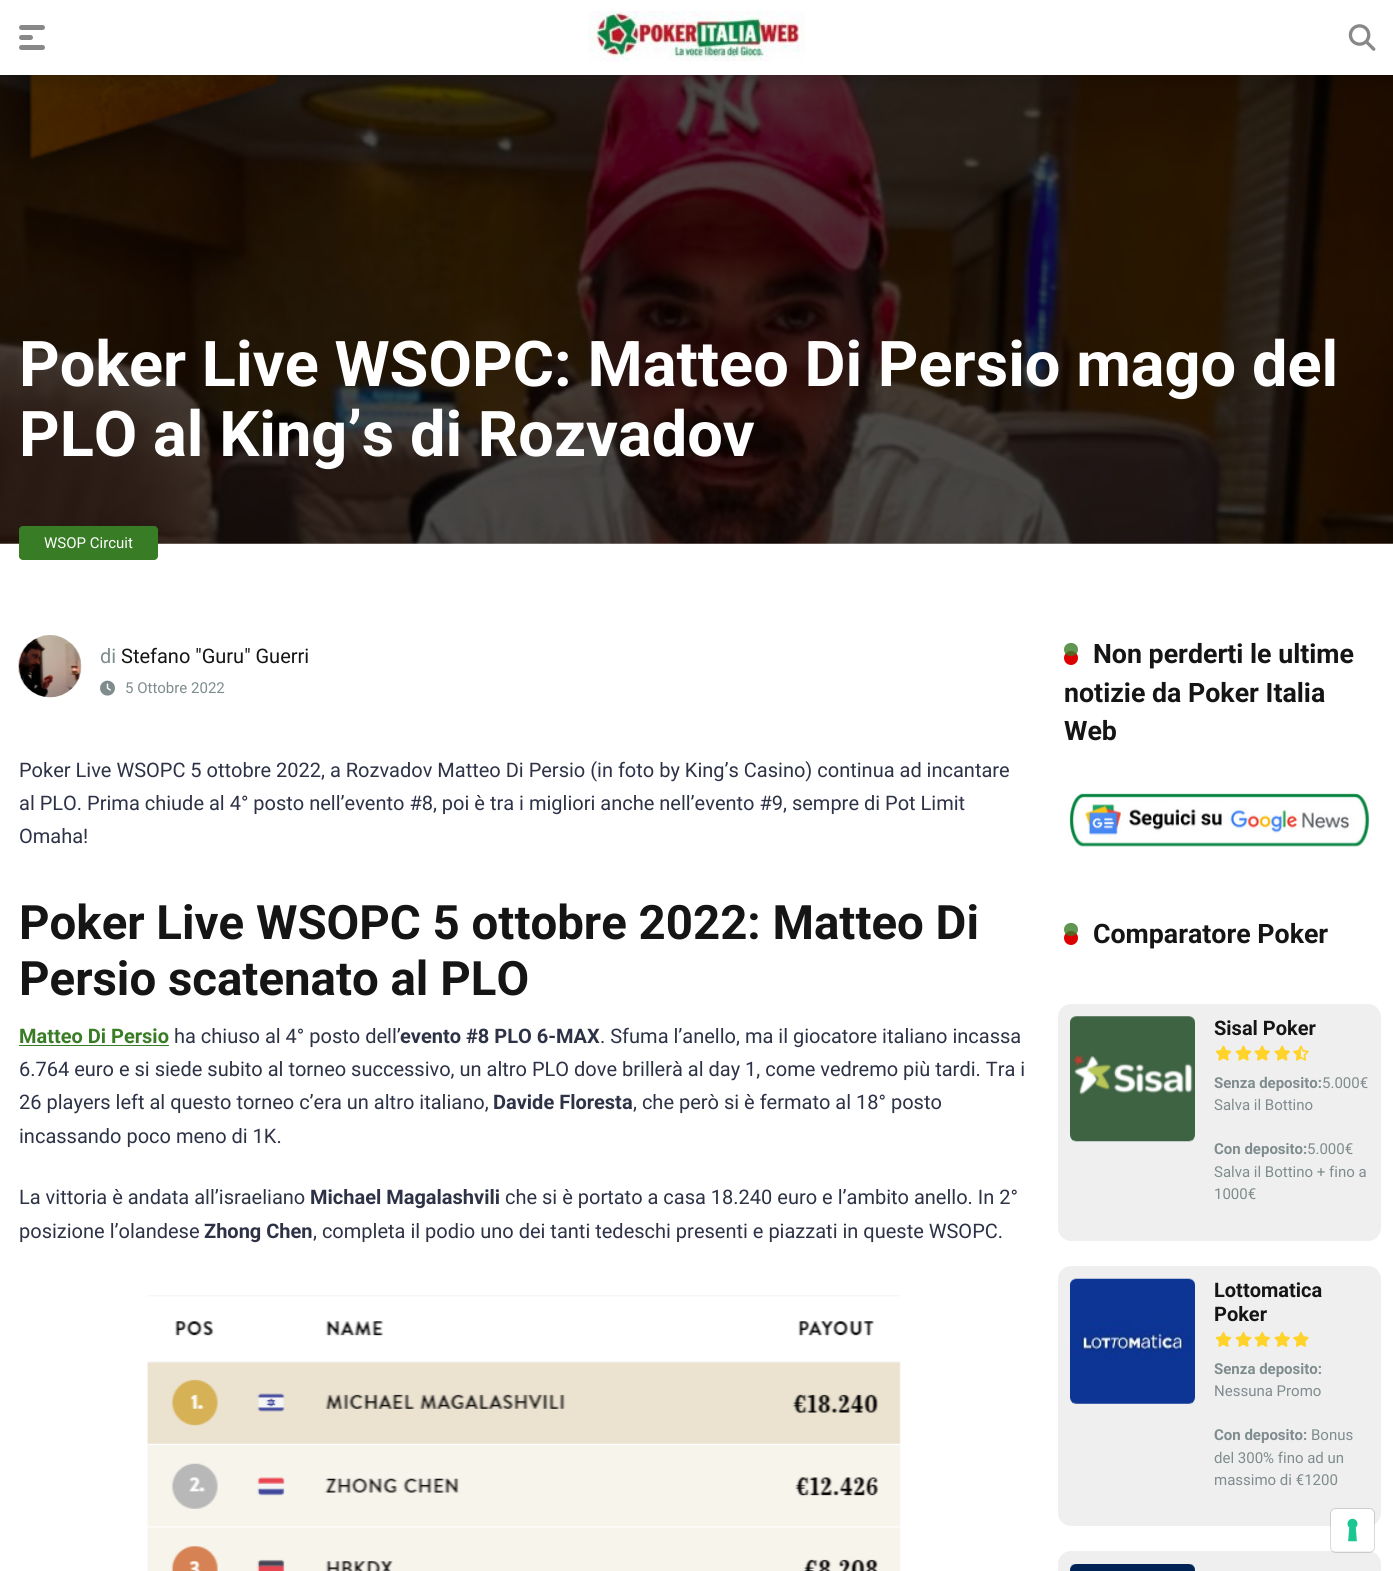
#include <cairo.h>
#include <math.h>
#include <stddef.h>

static cairo_t *c;
static void C(unsigned color){cairo_set_source_rgb(c, (color >> 16) / 255.0, (color >> 8 & 255) / 255.0, (color & 255) / 255.0);}
static void F(const char *family, double size, int italic, int bold){cairo_select_font_face(c, family, italic ? CAIRO_FONT_SLANT_ITALIC : CAIRO_FONT_SLANT_NORMAL,bold ? CAIRO_FONT_WEIGHT_BOLD : CAIRO_FONT_WEIGHT_NORMAL);cairo_set_font_size(c, size);}
static void T(double x, double y, const char *s){cairo_move_to(c, x, y);cairo_show_text(c, s);}
static void R(double x, double y, double w, double h){cairo_rectangle(c, x, y, w, h);cairo_fill(c);}
static void Q(double x, double y, double w, double h, double r){cairo_new_sub_path(c);cairo_arc(c, x + w - r, y + h - r, r, 0, M_PI / 2);cairo_arc(c, x + r, y + h - r, r, M_PI / 2, M_PI);cairo_arc(c, x + r, y + r, r, M_PI, 1.5 * M_PI);cairo_arc(c, x + w - r, y + r, r, 1.5 * M_PI, 2 * M_PI);cairo_close_path(c);}
static void S(double x, double y, double w, double h, double r, double blur, double alpha){cairo_push_group_with_content(c, CAIRO_CONTENT_ALPHA);cairo_set_operator(c, CAIRO_OPERATOR_SOURCE);for (int i = 15; i >= -15 && fmin(w, h) + blur * i / 3 > 0; i -= 2) {double e = blur * i / 6;cairo_set_source_rgba(c, 0, 0, 0, alpha * erfc((i - 1) / 8.5) / 2);Q(x - e, y - e, w + 2 * e, h + 2 * e, fmax(0, fmin(r + e + blur * .6, fmin(w, h) / 2 + e)));cairo_fill(c);}cairo_pattern_t *soft = cairo_pop_group(c);cairo_mask(c, soft);cairo_pattern_destroy(soft);}
static void I(const char *path, double x, double y, double w, double h){cairo_surface_t *image = cairo_image_surface_create_from_png(path);cairo_save(c);cairo_set_source_surface(c, image, x, y);cairo_rectangle(c, x, y, w, h);cairo_fill(c);cairo_restore(c);cairo_surface_destroy(image);}
int main(void) {
cairo_surface_t *surface = cairo_image_surface_create(CAIRO_FORMAT_RGB24, 1393, 1571);
c = cairo_create(surface);
cairo_font_options_t *options = cairo_font_options_create();
cairo_font_options_set_hint_metrics(options, CAIRO_HINT_METRICS_OFF);
cairo_font_options_set_hint_style(options, CAIRO_HINT_STYLE_NONE);
cairo_set_font_options(c, options);
cairo_set_miter_limit(c, 4);
C(0xffffff);
cairo_paint(c);
I("3.png",0,75,1393,469);
cairo_save(c);
cairo_rectangle(c,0,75,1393,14);
cairo_clip(c);
C(0x000000);
S(0,0,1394,75,0,9.5,.3);
cairo_restore(c);
C(0x888888);
Q(19,25,26,5,2.5);
cairo_fill(c);
Q(19,35,14,5,2.5);
cairo_fill(c);
Q(19,45,26,5,2.5);
cairo_fill(c);
I("1.png",588,11,217,51);
I("2.png",1348,24,28,27);
F("Roboto",63.1,0,1);
C(0xffffff);
T(19,386,"Poker Live WSOPC: Matteo Di Persio mago del");
T(19,456,"PLO al King’s di Rozvadov");
C(0x397c26);
Q(19,526,139,34,4);
cairo_fill(c);
F("Roboto",15,0,0);
C(0xffffff);
T(44,548,"WSOP Circuit");
I("4.png",18,635,64,63);
F("Roboto",20,0,0);
C(0x7f8c8d);
T(100,663,"di");
C(0x151515);
T(121,663,"Stefano \"Guru\" Guerri");
I("5.png",100,680,15,16);
F("Roboto",15,0,0);
C(0x7f8c8d);
T(125,693,"5 Ottobre 2022");
F("Roboto",20,0,0);
C(0x2e3246);
T(19,777,"Poker Live WSOPC 5 ottobre 2022, a Rozvadov Matteo Di Persio (in foto by King’s Casino) continua ad incantare");
T(19,810,"al PLO. Prima chiude al 4° posto nell’evento #8, poi è tra i migliori anche nell’evento #9, sempre di Pot Limit");
T(19,843,"Omaha!");
F("Roboto",47.4,0,1);
C(0x151515);
T(19,939,"Poker Live WSOPC 5 ottobre 2022: Matteo Di");
T(19,995,"Persio scatenato al PLO");
F("Roboto",20,0,1);
C(0x397c26);
T(19,1043,"Matteo Di Persio");
R(19,1045,150,1);
F("Roboto",20,0,0);
C(0x2e3246);
T(174,1043,"ha chiuso al 4° posto dell’");
F("Roboto",20,0,1);
T(400,1043,"evento #8 PLO 6-MAX");
F("Roboto",20,0,0);
T(600,1043,". Sfuma l’anello, ma il giocatore italiano incassa");
T(19,1076,"6.764 euro e si siede subito al torneo successivo, un altro PLO dove brillerà al day 1, come vedremo più tardi. Tra i");
T(19,1109,"26 players left al questo torneo c’era un altro italiano,");
F("Roboto",20,0,1);
T(493,1109,"Davide Floresta");
F("Roboto",20,0,0);
T(633,1109,", che però si è fermato al 18° posto");
T(19,1143,"incassando poco meno di 1K.");
T(19,1204,"La vittoria è andata all’israeliano");
F("Roboto",20,0,1);
T(310,1204,"Michael Magalashvili");
F("Roboto",20,0,0);
T(505,1204,"che si è portato a casa 18.240 euro e l’ambito anello. In 2°");
T(19,1238,"posizione l’olandese");
F("Roboto",20,0,1);
T(204,1238,"Zhong Chen");
F("Roboto",20,0,0);
T(313,1238,", completa il podio uno dei tanti tedeschi presenti e piazzati in queste WSOPC.");
I("6.png",147,1295,754,276);
C(0xdd0000);
cairo_arc(c,1071,658,7,0,2 * M_PI);
cairo_fill(c);
cairo_set_source_rgba(c,0.224,0.486,0.149,0.8);
Q(1064,643,14,13,6.5);
cairo_fill(c);
F("Roboto",26.75,0,1);
C(0x151515);
T(1093,663,"Non perderti le ultime");
T(1064,702,"notizie da Poker Italia");
T(1064,740,"Web");
I("7.png",1068,793,303,54);
C(0xdd0000);
cairo_arc(c,1071,938,7,0,2 * M_PI);
cairo_fill(c);
cairo_set_source_rgba(c,0.224,0.486,0.149,0.8);
Q(1064,923,14,13,6.5);
cairo_fill(c);
C(0x151515);
T(1093,943,"Comparatore Poker");
C(0xefefef);
Q(1058,1004,323,237,13);
cairo_fill(c);
I("8.png",1070,1016,125,126);
F("Roboto",20,0,1);
C(0x151515);
T(1214,1035,"Sisal Poker");
I("9.png",1215,1045,17,16);
I("9.png",1235,1045,17,16);
I("10.png",1254,1045,16,16);
I("10.png",1274,1045,16,16);
I("11.png",1293,1045,16,16);
F("Roboto",15,0,1);
C(0x7f8c8d);
T(1214,1088,"Senza deposito:");
F("Roboto",15,0,0);
T(1322,1088,"5.000€");
T(1214,1110,"Salva il Bottino");
F("Roboto",15,0,1);
T(1214,1154,"Con deposito:");
F("Roboto",15,0,0);
T(1307,1154,"5.000€");
T(1214,1177,"Salva il Bottino + fino a");
T(1214,1199,"1000€");
C(0xefefef);
Q(1058,1266,323,260,13);
cairo_fill(c);
I("12.png",1070,1278,125,126);
F("Roboto",20,0,1);
C(0x151515);
T(1214,1297,"Lottomatica");
T(1214,1321,"Poker");
I("13.png",1215,1331,17,16);
I("13.png",1235,1331,17,16);
I("14.png",1254,1331,16,16);
I("14.png",1274,1331,16,16);
I("15.png",1293,1331,16,16);
F("Roboto",15,0,1);
C(0x7f8c8d);
T(1214,1374,"Senza deposito:");
F("Roboto",15,0,0);
T(1214,1396,"Nessuna Promo");
F("Roboto",15,0,1);
T(1214,1440,"Con deposito:");
F("Roboto",15,0,0);
T(1311,1440,"Bonus");
T(1214,1463,"del 300% fino ad un");
T(1214,1485,"massimo di €1200");
C(0xefefef);
Q(1058,1551,323,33,13);
cairo_fill(c);
I("16.png",1070,1564,125,7);
Q(1330.5,1508.5,44,44,5.5);
cairo_set_source_rgba(c,0,0,0,0.15);
cairo_set_line_width(c,1);
cairo_stroke(c);
C(0xffffff);
Q(1331,1509,43,42,5);
cairo_fill(c);
I("17.png",1347,1518,11,24);
cairo_surface_write_to_png(surface, "o.png");
cairo_font_options_destroy(options);
cairo_destroy(c);
cairo_surface_destroy(surface);
return 0;
}
